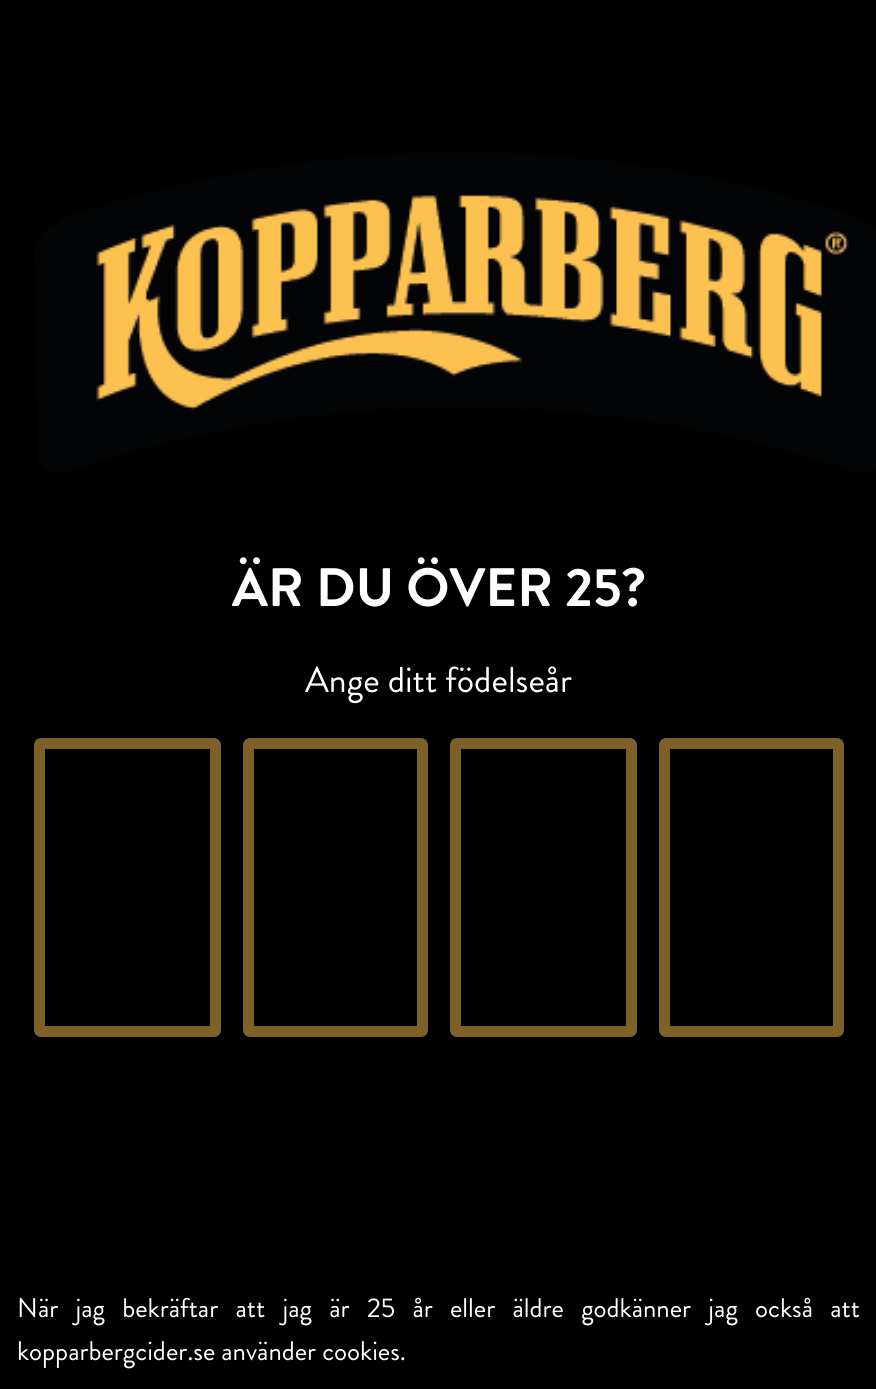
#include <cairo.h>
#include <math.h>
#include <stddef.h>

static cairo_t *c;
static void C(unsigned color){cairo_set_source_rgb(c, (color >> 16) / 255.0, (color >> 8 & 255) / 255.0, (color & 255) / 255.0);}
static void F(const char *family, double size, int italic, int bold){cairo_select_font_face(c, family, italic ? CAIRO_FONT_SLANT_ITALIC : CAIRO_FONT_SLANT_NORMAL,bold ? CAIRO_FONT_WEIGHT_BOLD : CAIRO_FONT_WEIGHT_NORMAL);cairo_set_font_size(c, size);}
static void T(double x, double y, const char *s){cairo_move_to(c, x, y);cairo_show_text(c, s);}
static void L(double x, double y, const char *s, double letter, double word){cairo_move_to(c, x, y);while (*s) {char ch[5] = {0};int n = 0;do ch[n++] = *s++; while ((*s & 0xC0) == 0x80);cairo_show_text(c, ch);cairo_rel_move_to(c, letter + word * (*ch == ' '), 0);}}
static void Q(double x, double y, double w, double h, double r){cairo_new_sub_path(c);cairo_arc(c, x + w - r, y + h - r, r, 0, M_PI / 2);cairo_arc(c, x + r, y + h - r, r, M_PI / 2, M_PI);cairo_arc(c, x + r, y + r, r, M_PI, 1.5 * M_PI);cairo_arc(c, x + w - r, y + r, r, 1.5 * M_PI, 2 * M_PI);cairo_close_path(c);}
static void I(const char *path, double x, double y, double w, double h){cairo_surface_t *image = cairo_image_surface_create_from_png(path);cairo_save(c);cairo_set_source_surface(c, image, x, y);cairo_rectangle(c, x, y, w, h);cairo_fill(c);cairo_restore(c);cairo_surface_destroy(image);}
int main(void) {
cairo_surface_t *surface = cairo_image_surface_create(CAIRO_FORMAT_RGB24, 876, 1389);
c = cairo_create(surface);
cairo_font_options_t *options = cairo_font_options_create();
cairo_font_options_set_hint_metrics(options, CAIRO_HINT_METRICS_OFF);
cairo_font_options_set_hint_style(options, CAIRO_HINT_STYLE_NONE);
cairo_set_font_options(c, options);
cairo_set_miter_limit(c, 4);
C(0x000000);
cairo_paint(c);
I("1.png",34,152,842,320);
F("Brandon Grotesque",54,0,1);
C(0xffffff);
T(232,606,"ÄR DU ÖVER 25?");
F("Brandon Grotesque",36,0,0);
T(305,692,"Ange ditt födelseår");
Q(39.5,743.5,176,288,1.5);
C(0x7e6028);
cairo_set_line_width(c,11);
cairo_stroke(c);
Q(248.5,743.5,174,288,1.5);
cairo_stroke(c);
Q(455.5,743.5,176,288,1.5);
cairo_stroke(c);
Q(664.5,743.5,174,288,1.5);
cairo_stroke(c);
F("Brandon Grotesque",27,0,0);
C(0xffffff);
L(17,1317,"När jag bekräftar att jag är 25 år eller äldre godkänner jag också att",0,11.25);
T(17,1360,"kopparbergcider.se använder cookies.");
cairo_surface_write_to_png(surface, "o.png");
cairo_font_options_destroy(options);
cairo_destroy(c);
cairo_surface_destroy(surface);
return 0;
}
